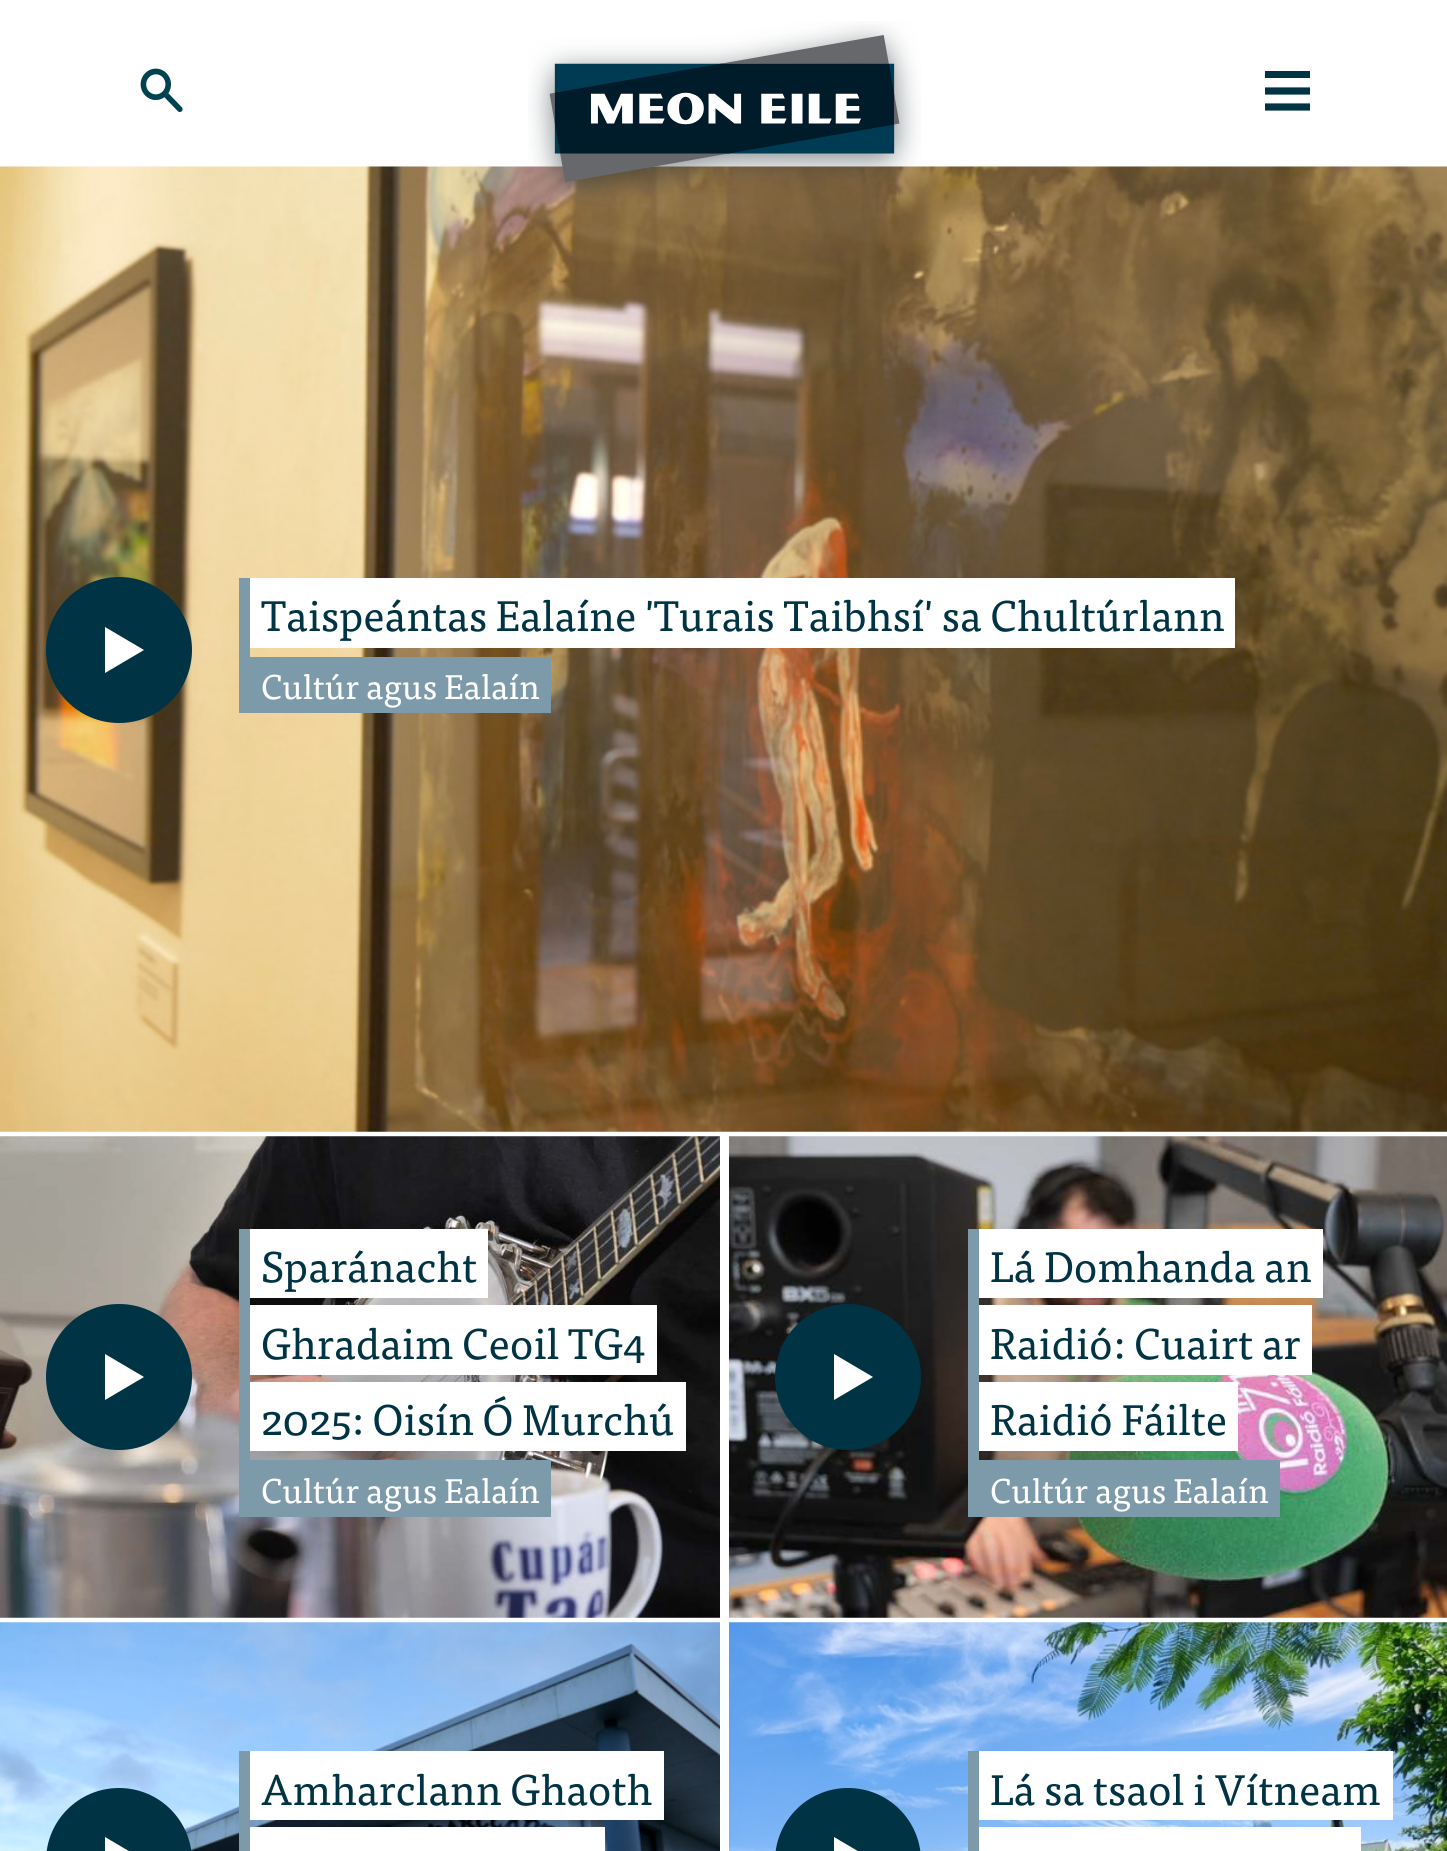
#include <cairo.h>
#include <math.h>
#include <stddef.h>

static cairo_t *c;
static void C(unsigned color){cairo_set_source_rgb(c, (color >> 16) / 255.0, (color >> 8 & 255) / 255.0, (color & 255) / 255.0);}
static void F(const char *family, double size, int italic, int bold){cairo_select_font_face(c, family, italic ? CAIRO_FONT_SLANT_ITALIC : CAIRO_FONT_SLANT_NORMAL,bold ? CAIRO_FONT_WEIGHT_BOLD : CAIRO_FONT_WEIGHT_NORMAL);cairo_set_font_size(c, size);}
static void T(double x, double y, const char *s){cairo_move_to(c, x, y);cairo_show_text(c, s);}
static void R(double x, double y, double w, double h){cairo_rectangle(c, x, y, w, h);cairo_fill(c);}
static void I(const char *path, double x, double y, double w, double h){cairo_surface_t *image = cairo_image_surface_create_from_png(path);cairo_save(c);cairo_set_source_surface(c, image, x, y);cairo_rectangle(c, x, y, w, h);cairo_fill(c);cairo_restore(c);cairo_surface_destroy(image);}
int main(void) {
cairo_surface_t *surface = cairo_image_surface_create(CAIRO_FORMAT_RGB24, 1447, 1851);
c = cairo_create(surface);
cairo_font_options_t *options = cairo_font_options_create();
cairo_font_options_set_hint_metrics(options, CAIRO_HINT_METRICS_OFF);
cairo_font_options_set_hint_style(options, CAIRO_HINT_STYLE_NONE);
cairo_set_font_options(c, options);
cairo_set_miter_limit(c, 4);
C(0xffffff);
cairo_paint(c);
I("1.png",140,68,43,44);
I("3.png",0,166,1447,966);
I("2.png",528,21,393,185);
C(0x003343);
R(1265,71,45,7);
cairo_save(c);
cairo_rectangle(c,1265,68,45,45);
cairo_clip(c);
cairo_new_path(c);
cairo_move_to(c,1267,91);
cairo_line_to(c,1308.5,91);
cairo_move_to(c,1267,107);
cairo_line_to(c,1308.5,107);
cairo_set_line_width(c,7.2);
cairo_set_line_cap(c,CAIRO_LINE_CAP_SQUARE);
cairo_stroke(c);
cairo_restore(c);
cairo_arc(c,119,650,73,0,2 * M_PI);
cairo_fill(c);
C(0xffffff);
cairo_set_fill_rule(c,CAIRO_FILL_RULE_EVEN_ODD);
cairo_new_path(c);
cairo_move_to(c,105,673);
cairo_line_to(c,105,627);
cairo_line_to(c,144,650);
cairo_close_path(c);
cairo_fill(c);
C(0x7d9aaa);
R(239,578,11,79);
C(0xffffff);
R(261,578,963,70);
F("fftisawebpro",42.75,0,0);
C(0x003343);
T(261,631,"Taispeántas Ealaíne 'Turais Taibhsí' sa Chultúrlann");
C(0xffffff);
cairo_set_fill_rule(c,CAIRO_FILL_RULE_WINDING);
cairo_new_path(c);
cairo_move_to(c,250,578);
cairo_line_to(c,250,648);
cairo_line_to(c,261,648);
cairo_line_to(c,261,578);
cairo_line_to(c,1213,578);
cairo_close_path(c);
cairo_fill(c);
cairo_new_path(c);
cairo_move_to(c,272,578);
cairo_line_to(c,1224,578);
cairo_line_to(c,1224,648);
cairo_line_to(c,1235,648);
cairo_line_to(c,1235,578);
cairo_close_path(c);
cairo_fill(c);
C(0x7d9aaa);
R(261,657,290,56);
F("fftisawebpro",34.25,0,0);
C(0xffffff);
T(261,699,"Cultúr agus Ealaín");
C(0x7d9aaa);
R(239,657,22,56);
I("4.png",0,1136,720,482);
C(0x003343);
cairo_arc(c,119,1377,73,0,2 * M_PI);
cairo_fill(c);
C(0xffffff);
cairo_set_fill_rule(c,CAIRO_FILL_RULE_EVEN_ODD);
cairo_new_path(c);
cairo_move_to(c,105,1400);
cairo_line_to(c,105,1354);
cairo_line_to(c,144,1377);
cairo_close_path(c);
cairo_fill(c);
C(0x7d9aaa);
R(239,1229,11,231);
C(0xffffff);
R(261,1229,227,69);
F("fftisawebpro",42.75,0,0);
C(0x003343);
T(261,1282,"Sparánacht");
C(0xffffff);
R(250,1229,11,69);
R(261,1305,385,70);
C(0x003343);
T(261,1359,"Ghradaim Ceoil TG4");
C(0xffffff);
cairo_set_fill_rule(c,CAIRO_FILL_RULE_WINDING);
cairo_new_path(c);
cairo_move_to(c,250,1305);
cairo_line_to(c,250,1375);
cairo_line_to(c,635,1375);
cairo_line_to(c,261,1375);
cairo_line_to(c,261,1305);
cairo_close_path(c);
cairo_fill(c);
cairo_new_path(c);
cairo_move_to(c,272,1375);
cairo_line_to(c,657,1375);
cairo_line_to(c,657,1305);
cairo_line_to(c,646,1305);
cairo_line_to(c,646,1375);
cairo_close_path(c);
cairo_fill(c);
R(261,1382,425,69);
C(0x003343);
T(261,1435,"2025: Oisín Ó Murchú");
C(0xffffff);
R(250,1382,11,69);
C(0x7d9aaa);
cairo_new_path(c);
cairo_move_to(c,239,1460);
cairo_line_to(c,239,1517);
cairo_line_to(c,518,1517);
cairo_line_to(c,518,1516);
cairo_line_to(c,261,1516);
cairo_line_to(c,261,1460);
cairo_line_to(c,518,1460);
cairo_close_path(c);
cairo_fill(c);
cairo_new_path(c);
cairo_move_to(c,272,1460);
cairo_line_to(c,540,1460);
cairo_line_to(c,540,1516);
cairo_line_to(c,272,1516);
cairo_line_to(c,272,1517);
cairo_line_to(c,551,1517);
cairo_line_to(c,551,1460);
cairo_close_path(c);
cairo_fill(c);
R(261,1460,279,56);
F("fftisawebpro",34.25,0,0);
C(0xffffff);
T(261,1503,"Cultúr agus Ealaín");
I("5.png",729,1136,718,482);
C(0x003343);
cairo_arc(c,848,1377,73,0,2 * M_PI);
cairo_fill(c);
C(0xffffff);
cairo_set_fill_rule(c,CAIRO_FILL_RULE_EVEN_ODD);
cairo_new_path(c);
cairo_move_to(c,834,1400);
cairo_line_to(c,834,1354);
cairo_line_to(c,873,1377);
cairo_close_path(c);
cairo_fill(c);
C(0x7d9aaa);
R(968,1229,11,231);
C(0xffffff);
R(990,1229,333,69);
F("fftisawebpro",42.75,0,0);
C(0x003343);
T(990,1282,"Lá Domhanda an");
C(0xffffff);
R(979,1229,11,69);
R(990,1305,310,70);
C(0x003343);
T(990,1359,"Raidió: Cuairt ar");
C(0xffffff);
cairo_set_fill_rule(c,CAIRO_FILL_RULE_WINDING);
cairo_new_path(c);
cairo_move_to(c,979,1305);
cairo_line_to(c,979,1375);
cairo_line_to(c,1289,1375);
cairo_line_to(c,990,1375);
cairo_line_to(c,990,1305);
cairo_close_path(c);
cairo_fill(c);
cairo_new_path(c);
cairo_move_to(c,1001,1375);
cairo_line_to(c,1312,1375);
cairo_line_to(c,1312,1305);
cairo_line_to(c,1300,1305);
cairo_line_to(c,1300,1375);
cairo_close_path(c);
cairo_fill(c);
R(990,1382,248,69);
C(0x003343);
T(990,1435,"Raidió Fáilte");
C(0xffffff);
R(979,1382,11,69);
C(0x7d9aaa);
cairo_new_path(c);
cairo_move_to(c,968,1460);
cairo_line_to(c,968,1517);
cairo_line_to(c,1247,1517);
cairo_line_to(c,1247,1516);
cairo_line_to(c,990,1516);
cairo_line_to(c,990,1460);
cairo_line_to(c,1247,1460);
cairo_close_path(c);
cairo_fill(c);
cairo_new_path(c);
cairo_move_to(c,1001,1460);
cairo_line_to(c,1269,1460);
cairo_line_to(c,1269,1516);
cairo_line_to(c,1001,1516);
cairo_line_to(c,1001,1517);
cairo_line_to(c,1280,1517);
cairo_line_to(c,1280,1460);
cairo_close_path(c);
cairo_fill(c);
R(990,1460,279,56);
F("fftisawebpro",34.25,0,0);
C(0xffffff);
T(990,1503,"Cultúr agus Ealaín");
I("6.png",0,1622,720,229);
C(0x003343);
cairo_arc(c,119,1861,73,0,2 * M_PI);
cairo_fill(c);
C(0xffffff);
cairo_set_fill_rule(c,CAIRO_FILL_RULE_EVEN_ODD);
cairo_new_path(c);
cairo_move_to(c,105,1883);
cairo_line_to(c,105,1837);
cairo_line_to(c,144,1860);
cairo_close_path(c);
cairo_fill(c);
C(0x7d9aaa);
R(239,1751,11,100);
C(0xffffff);
R(261,1751,403,69);
F("fftisawebpro",42.75,0,0);
C(0x003343);
T(261,1805,"Amharclann Ghaoth");
C(0xffffff);
R(250,1751,11,69);
cairo_set_fill_rule(c,CAIRO_FILL_RULE_WINDING);
cairo_new_path(c);
cairo_move_to(c,250,1827);
cairo_line_to(c,250,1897);
cairo_line_to(c,583,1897);
cairo_line_to(c,261,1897);
cairo_line_to(c,261,1827);
cairo_close_path(c);
cairo_fill(c);
cairo_new_path(c);
cairo_move_to(c,272,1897);
cairo_line_to(c,605,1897);
cairo_line_to(c,605,1827);
cairo_line_to(c,594,1827);
cairo_line_to(c,594,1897);
cairo_close_path(c);
cairo_fill(c);
R(261,1827,333,24);
I("7.png",729,1622,718,229);
C(0x003343);
cairo_arc(c,848,1861,73,0,2 * M_PI);
cairo_fill(c);
C(0xffffff);
cairo_set_fill_rule(c,CAIRO_FILL_RULE_EVEN_ODD);
cairo_new_path(c);
cairo_move_to(c,834,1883);
cairo_line_to(c,834,1837);
cairo_line_to(c,873,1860);
cairo_close_path(c);
cairo_fill(c);
C(0x7d9aaa);
R(968,1751,11,100);
C(0xffffff);
R(990,1751,403,69);
C(0x003343);
T(990,1805,"Lá sa tsaol i Vítneam");
C(0xffffff);
R(979,1751,11,69);
cairo_set_fill_rule(c,CAIRO_FILL_RULE_WINDING);
cairo_new_path(c);
cairo_move_to(c,979,1827);
cairo_line_to(c,979,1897);
cairo_line_to(c,1339,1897);
cairo_line_to(c,990,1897);
cairo_line_to(c,990,1827);
cairo_close_path(c);
cairo_fill(c);
cairo_new_path(c);
cairo_move_to(c,1001,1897);
cairo_line_to(c,1361,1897);
cairo_line_to(c,1361,1827);
cairo_line_to(c,1350,1827);
cairo_line_to(c,1350,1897);
cairo_close_path(c);
cairo_fill(c);
R(990,1827,360,24);
cairo_surface_write_to_png(surface, "o.png");
cairo_font_options_destroy(options);
cairo_destroy(c);
cairo_surface_destroy(surface);
return 0;
}
